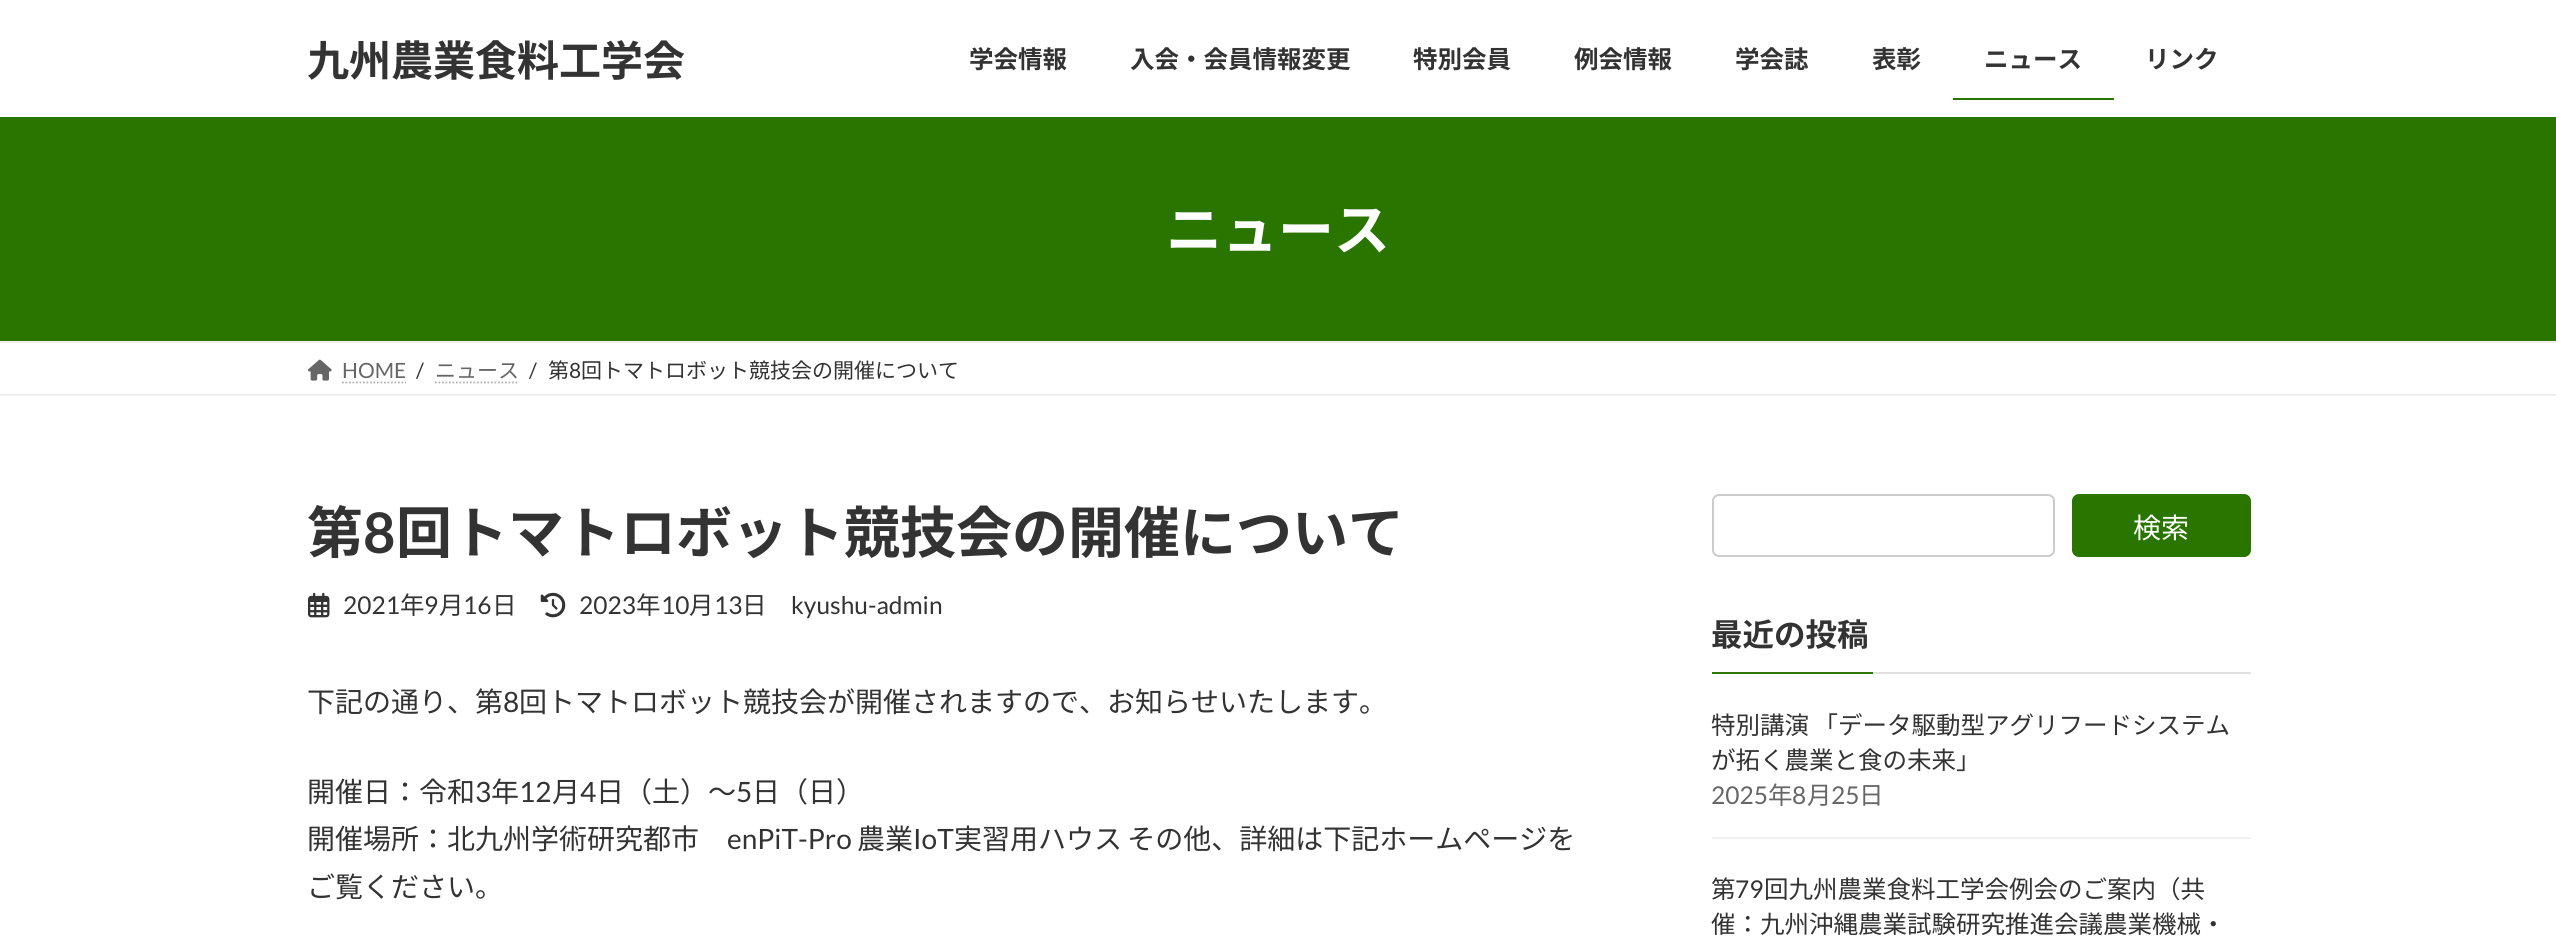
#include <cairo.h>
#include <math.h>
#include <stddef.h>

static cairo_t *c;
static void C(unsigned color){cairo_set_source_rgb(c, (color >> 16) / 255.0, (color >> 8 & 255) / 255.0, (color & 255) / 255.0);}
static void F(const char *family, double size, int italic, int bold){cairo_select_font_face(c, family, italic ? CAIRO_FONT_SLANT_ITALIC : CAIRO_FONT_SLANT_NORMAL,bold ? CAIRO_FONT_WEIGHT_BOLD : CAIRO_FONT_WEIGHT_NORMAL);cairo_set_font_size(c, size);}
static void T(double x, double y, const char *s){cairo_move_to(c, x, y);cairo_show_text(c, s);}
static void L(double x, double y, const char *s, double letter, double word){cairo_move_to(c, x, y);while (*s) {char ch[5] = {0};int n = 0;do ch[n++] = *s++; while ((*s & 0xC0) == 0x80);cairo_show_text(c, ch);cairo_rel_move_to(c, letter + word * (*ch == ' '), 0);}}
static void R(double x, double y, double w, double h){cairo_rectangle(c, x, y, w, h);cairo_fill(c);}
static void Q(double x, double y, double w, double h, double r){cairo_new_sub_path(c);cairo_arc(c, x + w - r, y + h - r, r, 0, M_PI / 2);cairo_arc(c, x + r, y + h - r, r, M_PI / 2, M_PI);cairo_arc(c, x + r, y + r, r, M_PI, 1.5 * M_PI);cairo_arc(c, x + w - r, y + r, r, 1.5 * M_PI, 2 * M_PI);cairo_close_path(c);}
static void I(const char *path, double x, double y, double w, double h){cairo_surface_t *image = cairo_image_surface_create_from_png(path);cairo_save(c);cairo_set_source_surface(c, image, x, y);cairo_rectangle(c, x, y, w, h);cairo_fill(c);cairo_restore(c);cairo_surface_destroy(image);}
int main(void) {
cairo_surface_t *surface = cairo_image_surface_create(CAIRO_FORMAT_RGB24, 2556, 950);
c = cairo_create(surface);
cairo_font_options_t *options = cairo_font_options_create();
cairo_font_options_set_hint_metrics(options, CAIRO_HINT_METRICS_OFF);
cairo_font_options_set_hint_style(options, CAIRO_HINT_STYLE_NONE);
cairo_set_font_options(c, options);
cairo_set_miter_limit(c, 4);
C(0xffffff);
cairo_paint(c);
F("Noto Sans JP",42,0,1);
C(0x333333);
T(307,76,"九州農業食料工学会");
F("Noto Sans JP",24.5,0,1);
T(969,68,"学会情報");
T(1130,68,"入会・会員情報変更");
T(1413,68,"特別会員");
T(1574,68,"例会情報");
T(1735,68,"学会誌");
T(1872,68,"表彰");
T(1984,68,"ニュース");
C(0x297500);
R(1953,98,161,2);
C(0x333333);
T(2145,68,"リンク");
C(0x297500);
R(0,117,2556,224);
F("Noto Sans JP",56,0,1);
C(0xffffff);
T(1166,250,"ニュース");
C(0xf0f0f0);
R(0,341,2556,2);
R(0,394,2556,2);
I("1.png",308,359,24,22);
F("Lato",21,0,0);
C(0x666666);
T(342,378,"HOME");
cairo_new_path(c);
cairo_move_to(c,342,382.5);
cairo_line_to(c,406,382.5);
C(0xb3b3b3);
cairo_set_line_width(c,1.8);
cairo_set_dash(c,(double[]){1.75,1.75},2,0);
cairo_stroke(c);
C(0x333333);
T(416,378,"/");
F("Noto Sans JP",21,0,0);
C(0x666666);
T(435,378,"ニュース");
cairo_new_path(c);
cairo_move_to(c,435,382.5);
cairo_line_to(c,519,382.5);
C(0xb3b3b3);
cairo_stroke(c);
F("Lato",21,0,0);
C(0x333333);
T(529,378,"/");
F("Noto Sans JP",21,0,0);
T(548,378,"第");
F("Lato",21,0,0);
T(569,378,"8");
F("Noto Sans JP",21,0,0);
T(581,378,"回トマトロボット競技会の開催について");
F("Noto Sans JP",56,0,1);
T(307,553,"第");
F("Lato",56,0,1);
T(363,553,"8");
F("Noto Sans JP",56,0,1);
T(396,553,"回トマトロボット競技会の開催について");
I("2.png",308,592,22,26);
F("Lato",24.5,0,0);
T(343,614,"2021");
F("Noto Sans JP",24.5,0,0);
T(400,614,"年");
F("Lato",24.5,0,0);
T(424,614,"9");
F("Noto Sans JP",24.5,0,0);
T(439,614,"月");
F("Lato",24.5,0,0);
T(463,614,"16");
F("Noto Sans JP",24.5,0,0);
T(492,614,"日");
I("3.png",540,592,26,26);
F("Lato",24.5,0,0);
T(579,614,"2023");
F("Noto Sans JP",24.5,0,0);
T(636,614,"年");
F("Lato",24.5,0,0);
T(661,614,"10");
F("Noto Sans JP",24.5,0,0);
T(689,614,"月");
F("Lato",24.5,0,0);
T(714,614,"13");
F("Noto Sans JP",24.5,0,0);
T(742,614,"日");
F("Lato",24.5,0,0);
T(791,614,"kyushu-admin");
F("Noto Sans JP",28,0,0);
T(307,712,"下記の通り、第");
F("Lato",28,0,0);
T(503,712,"8");
F("Noto Sans JP",28,0,0);
T(519,712,"回トマトロボット競技会が開催されますので、お知らせいたします。");
T(307,802,"開催日：令和");
F("Lato",28,0,0);
T(475,802,"3");
F("Noto Sans JP",28,0,0);
T(491,802,"年");
F("Lato",28,0,0);
T(519,802,"12");
F("Noto Sans JP",28,0,0);
T(552,802,"月");
F("Lato",28,0,0);
T(580,802,"4");
F("Noto Sans JP",28,0,0);
T(596,802,"日（土）～");
F("Lato",28,0,0);
T(736,802,"5");
F("Noto Sans JP",28,0,0);
T(752,802,"日（日）");
T(307,849,"開催場所：北九州学術研究都市");
F("Lato",28,0,0);
T(727,849,"enPiT-Pro");
F("Noto Sans JP",28,0,0);
T(857,849,"農業");
F("Lato",28,0,0);
T(913,849,"IoT");
F("Noto Sans JP",28,0,0);
L(954,849,"実習用ハウス その他、詳細は下記ホームページを",0,-1);
T(307,897,"ご覧ください。");
Q(1713,495,341,61,6);
C(0xcccccc);
cairo_set_line_width(c,2);
cairo_set_dash(c,NULL,0,0);
cairo_stroke(c);
C(0x297500);
Q(2072,494,179,63,7);
cairo_fill(c);
C(0xffffff);
T(2133,538,"検索");
C(0xe0e0e0);
R(1873,672,378,2);
F("Noto Sans JP",31.5,0,1);
C(0x333333);
T(1711,646,"最近の投稿");
C(0x297500);
R(1712,672,161,2);
C(0xf0f0f0);
R(1712,837,539,2);
F("Noto Sans JP",24.5,0,0);
C(0x333333);
L(1711,734,"特別講演 「データ駆動型アグリフードシステム",0,-1);
T(1711,769,"が拓く農業と食の未来」");
F("Lato",24.5,0,0);
C(0x666666);
T(1711,804,"2025");
F("Noto Sans JP",24.5,0,0);
T(1768,804,"年");
F("Lato",24.5,0,0);
T(1792,804,"8");
F("Noto Sans JP",24.5,0,0);
T(1807,804,"月");
F("Lato",24.5,0,0);
T(1831,804,"25");
F("Noto Sans JP",24.5,0,0);
T(1859,804,"日");
C(0x333333);
T(1711,898,"第");
F("Lato",24.5,0,0);
T(1735,898,"79");
F("Noto Sans JP",24.5,0,0);
T(1764,898,"回九州農業食料工学会例会のご案内（共");
T(1711,933,"催：九州沖縄農業試験研究推進会議農業機械・");
cairo_surface_write_to_png(surface, "o.png");
cairo_font_options_destroy(options);
cairo_destroy(c);
cairo_surface_destroy(surface);
return 0;
}
